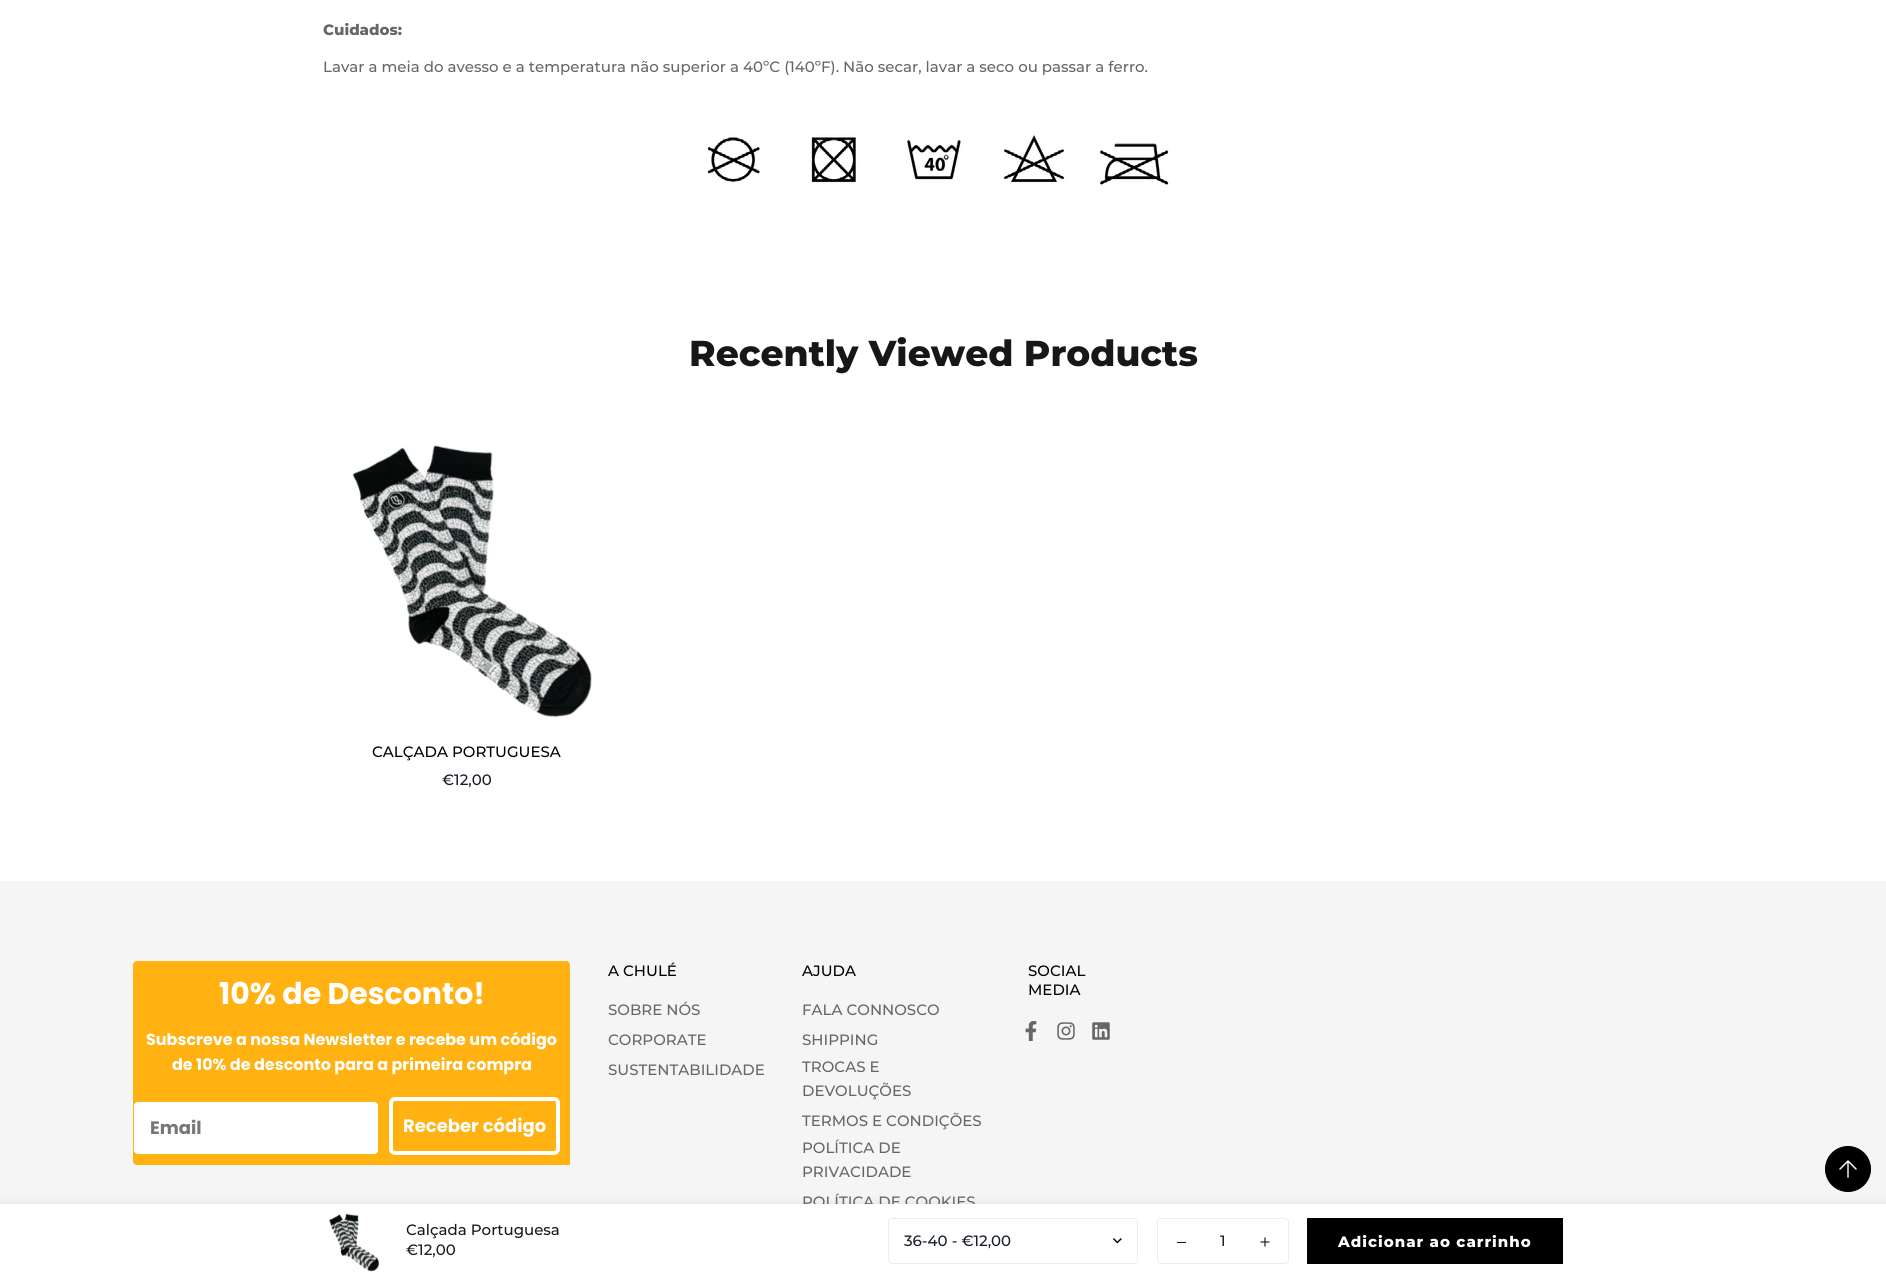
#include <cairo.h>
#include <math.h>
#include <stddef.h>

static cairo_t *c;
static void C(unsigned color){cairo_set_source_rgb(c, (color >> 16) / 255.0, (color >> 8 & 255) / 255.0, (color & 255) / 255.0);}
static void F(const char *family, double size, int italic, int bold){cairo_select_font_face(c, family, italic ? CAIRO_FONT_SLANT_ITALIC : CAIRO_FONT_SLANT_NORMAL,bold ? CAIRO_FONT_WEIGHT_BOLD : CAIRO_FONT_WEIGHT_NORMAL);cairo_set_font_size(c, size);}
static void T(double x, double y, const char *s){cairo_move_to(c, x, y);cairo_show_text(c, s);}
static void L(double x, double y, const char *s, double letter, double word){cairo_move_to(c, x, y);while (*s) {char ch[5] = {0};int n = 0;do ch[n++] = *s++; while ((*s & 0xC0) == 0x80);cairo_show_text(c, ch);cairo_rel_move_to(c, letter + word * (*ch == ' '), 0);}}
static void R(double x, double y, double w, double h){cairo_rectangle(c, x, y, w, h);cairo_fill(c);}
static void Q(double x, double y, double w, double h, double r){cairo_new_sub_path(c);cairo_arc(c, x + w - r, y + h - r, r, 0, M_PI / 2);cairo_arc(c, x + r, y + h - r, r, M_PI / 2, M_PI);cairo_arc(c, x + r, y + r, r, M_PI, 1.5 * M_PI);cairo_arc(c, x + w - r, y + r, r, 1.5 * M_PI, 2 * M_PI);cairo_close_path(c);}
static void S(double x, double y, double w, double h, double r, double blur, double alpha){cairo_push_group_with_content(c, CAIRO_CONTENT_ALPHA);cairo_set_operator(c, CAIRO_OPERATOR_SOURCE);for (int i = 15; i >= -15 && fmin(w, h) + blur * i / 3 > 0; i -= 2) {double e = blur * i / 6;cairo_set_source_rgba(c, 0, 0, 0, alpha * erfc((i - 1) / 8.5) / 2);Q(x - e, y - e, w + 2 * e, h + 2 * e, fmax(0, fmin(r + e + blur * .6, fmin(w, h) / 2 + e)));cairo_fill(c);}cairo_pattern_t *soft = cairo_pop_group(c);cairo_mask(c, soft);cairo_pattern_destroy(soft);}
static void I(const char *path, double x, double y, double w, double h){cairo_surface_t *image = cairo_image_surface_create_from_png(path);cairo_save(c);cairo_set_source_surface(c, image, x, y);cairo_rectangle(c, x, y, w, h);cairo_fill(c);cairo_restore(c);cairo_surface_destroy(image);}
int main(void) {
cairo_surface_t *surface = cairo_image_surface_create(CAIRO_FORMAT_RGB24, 1886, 1278);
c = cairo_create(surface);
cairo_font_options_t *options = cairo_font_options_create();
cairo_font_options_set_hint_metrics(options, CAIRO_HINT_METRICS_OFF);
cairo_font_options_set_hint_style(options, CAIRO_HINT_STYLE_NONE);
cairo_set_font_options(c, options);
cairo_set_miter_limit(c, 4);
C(0xffffff);
cairo_paint(c);
F("Montserrat ExtraBold",15,0,0);
C(0x666666);
T(323,35,"Cuidados:");
F("Montserrat Medium",15,0,0);
T(323,72,"Lavar a meia do avesso e a temperatura não superior a 40ºC (140ºF). Não secar, lavar a seco ou passar a ferro.");
I("1.png",707,135,464,50);
F("Montserrat ExtraBold",36,0,0);
C(0x171717);
T(689,366,"Recently Viewed Products");
I("2.png",352,445,240,272);
F("Montserrat Medium",15,0,0);
C(0x000000);
T(372,757,"CALÇADA PORTUGUESA");
C(0x161d25);
T(442,785,"€12,00");
C(0xf5f5f5);
R(0,881,1886,323);
C(0x000000);
S(0,1204,1886,74,0,5,.09);
C(0x666666);
T(802,1207,"POLÍTICA DE COOKIES");
C(0xffffff);
R(0,1204,1886,74);
I("3.png",329,1213,50,59);
C(0x171717);
T(406,1235,"Calçada Portuguesa");
C(0x161d25);
T(406,1255,"€12,00");
I("4.png",1113,1238,9,6);
Q(888.5,1218.5,249,45,3.5);
C(0xeeeee0);
cairo_set_line_width(c,1);
cairo_stroke(c);
C(0x161d25);
T(904,1246,"36-40 - €12,00");
Q(1157.5,1218.5,131,45,3.5);
C(0xeeeee0);
cairo_stroke(c);
I("5.png",1176,1241,10,2);
C(0x161d25);
T(1220,1246,"1");
I("6.png",1260,1237,10,10);
C(0x000000);
R(1307,1218,256,46);
F("Montserrat ExtraBold",15,0,0);
C(0xffffff);
L(1338,1247,"Adicionar ao carrinho",1,0);
C(0xffb211);
Q(133,961,437,204,4);
cairo_fill(c);
F("Poppins",30,0,1);
C(0xffffff);
T(219,1004,"10% de Desconto!");
F("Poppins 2",16,0,1);
T(146,1045,"Subscreve a nossa Newsletter e recebe um código");
T(172,1070,"de 10% de desconto para a primeira compra");
Q(133.5,1101.5,245,53,4.5);
cairo_fill_preserve(c);
C(0xffb211);
cairo_stroke(c);
F("Poppins",18,0,1);
C(0x767676);
T(150,1134,"Email");
C(0xffb211);
R(566,1161,4,4);
Q(391,1099,167,54,4);
C(0xffffff);
cairo_set_line_width(c,4);
cairo_stroke(c);
T(403,1132,"Receber código");
F("Montserrat Medium",15,0,0);
C(0x000000);
T(608,976,"A CHULÉ");
C(0x666666);
T(608,1015,"SOBRE NÓS");
T(608,1045,"CORPORATE");
T(608,1075,"SUSTENTABILIDADE");
C(0x000000);
T(802,976,"AJUDA");
C(0x666666);
T(802,1015,"FALA CONNOSCO");
T(802,1045,"SHIPPING");
T(802,1072,"TROCAS E");
T(802,1096,"DEVOLUÇÕES");
T(802,1126,"TERMOS E CONDIÇÕES");
T(802,1153,"POLÍTICA DE");
T(802,1177,"PRIVACIDADE");
C(0x000000);
T(1028,976,"SOCIAL");
T(1028,995,"MEDIA");
I("7.png",1025,1021,12,20);
I("8.png",1057,1022,18,18);
I("9.png",1092,1022,18,18);
cairo_arc(c,1848,1169,22.5,0,2 * M_PI);
cairo_fill_preserve(c);
cairo_set_line_width(c,1);
cairo_stroke(c);
I("10.png",1839,1160,18,18);
cairo_surface_write_to_png(surface, "o.png");
cairo_font_options_destroy(options);
cairo_destroy(c);
cairo_surface_destroy(surface);
return 0;
}
